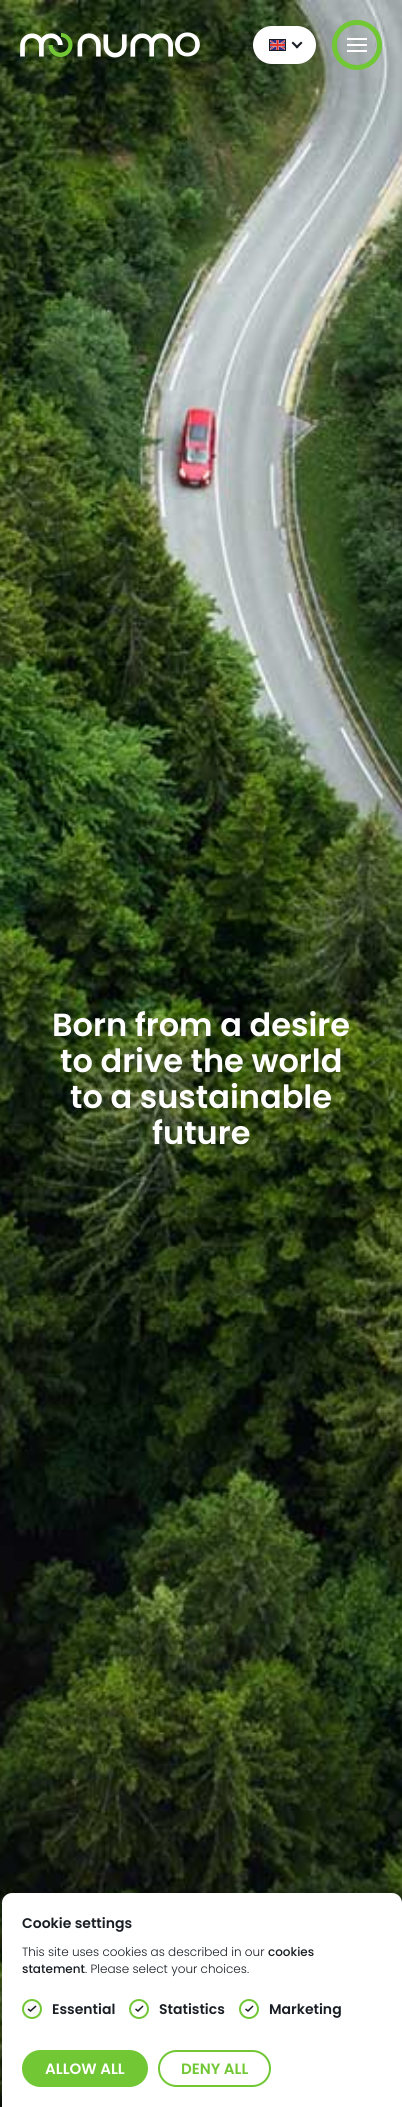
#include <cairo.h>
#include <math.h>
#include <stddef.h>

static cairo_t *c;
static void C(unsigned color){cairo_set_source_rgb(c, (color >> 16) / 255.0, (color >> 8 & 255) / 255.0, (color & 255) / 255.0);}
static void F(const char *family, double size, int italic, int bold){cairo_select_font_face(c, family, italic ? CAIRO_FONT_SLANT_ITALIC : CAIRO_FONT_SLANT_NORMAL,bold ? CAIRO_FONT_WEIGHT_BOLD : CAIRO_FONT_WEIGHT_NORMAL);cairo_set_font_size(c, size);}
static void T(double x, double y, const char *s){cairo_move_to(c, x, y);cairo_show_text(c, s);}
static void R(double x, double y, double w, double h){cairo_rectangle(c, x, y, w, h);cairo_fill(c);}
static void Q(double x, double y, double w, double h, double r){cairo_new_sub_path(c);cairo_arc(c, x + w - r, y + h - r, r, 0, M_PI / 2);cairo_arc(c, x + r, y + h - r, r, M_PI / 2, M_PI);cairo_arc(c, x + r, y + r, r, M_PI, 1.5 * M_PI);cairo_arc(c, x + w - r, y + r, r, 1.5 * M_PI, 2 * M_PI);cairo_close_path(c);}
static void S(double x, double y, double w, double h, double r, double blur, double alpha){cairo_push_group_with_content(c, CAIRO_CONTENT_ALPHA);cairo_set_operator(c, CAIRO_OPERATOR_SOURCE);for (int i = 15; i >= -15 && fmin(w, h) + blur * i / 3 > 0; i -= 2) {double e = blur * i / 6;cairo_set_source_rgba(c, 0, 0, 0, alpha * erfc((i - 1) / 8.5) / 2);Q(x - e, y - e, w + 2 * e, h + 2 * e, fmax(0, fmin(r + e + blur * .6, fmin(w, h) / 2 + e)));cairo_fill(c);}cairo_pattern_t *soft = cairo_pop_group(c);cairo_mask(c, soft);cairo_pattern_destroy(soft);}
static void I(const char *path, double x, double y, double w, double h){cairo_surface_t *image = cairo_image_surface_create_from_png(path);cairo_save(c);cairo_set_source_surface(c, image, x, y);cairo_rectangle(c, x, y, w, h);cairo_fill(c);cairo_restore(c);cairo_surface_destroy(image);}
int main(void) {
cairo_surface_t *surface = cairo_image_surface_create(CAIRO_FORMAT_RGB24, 402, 2107);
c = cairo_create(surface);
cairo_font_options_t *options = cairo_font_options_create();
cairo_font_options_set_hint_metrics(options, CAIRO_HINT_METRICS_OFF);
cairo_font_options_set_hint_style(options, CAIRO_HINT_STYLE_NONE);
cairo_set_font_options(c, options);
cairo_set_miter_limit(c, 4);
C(0xffffff);
cairo_paint(c);
I("4.png",0,0,402,2107);
I("1.png",20,32,180,26);
I("2.png",48,33,25,24);
C(0x000000);
S(251,24,67,42,21,3,.1);
C(0xffffff);
Q(253,26,63,38,19);
cairo_fill(c);
I("3.png",270,40,15,10);
cairo_rectangle(c,269.5,39.5,16,11);
C(0x191e24);
cairo_set_line_width(c,1);
cairo_stroke(c);
cairo_new_path(c);
cairo_move_to(c,301,41.5);
cairo_line_to(c,302.5,43);
cairo_line_to(c,297,48.5);
cairo_line_to(c,295.5,47);
cairo_close_path(c);
cairo_fill(c);
cairo_new_path(c);
cairo_move_to(c,293,41.5);
cairo_line_to(c,298.5,47);
cairo_line_to(c,297,48.5);
cairo_line_to(c,291.5,43);
cairo_close_path(c);
cairo_fill(c);
cairo_arc(c,357,45,22.5,0,2 * M_PI);
C(0x71c734);
cairo_set_line_width(c,5);
cairo_stroke(c);
C(0xffffff);
R(347,38,20,2);
R(347,44,20,2);
R(347,50,20,2);
F("Poppins SemiBold",32,0,0);
T(52,1036,"Born from a desire");
T(60,1072,"to drive the world");
T(70,1108,"to a sustainable");
T(152,1144,"future");
C(0x000000);
S(0,1891,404,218,12,3,.1);
C(0xffffff);
cairo_new_path(c);
cairo_move_to(c,12,1893);
cairo_line_to(c,392,1893);
cairo_curve_to(c,397.5,1893,402,1897.5,402,1903);
cairo_line_to(c,402,2107);
cairo_line_to(c,2,2107);
cairo_line_to(c,2,1903);
cairo_curve_to(c,2,1897.5,6.5,1893,12,1893);
cairo_close_path(c);
cairo_fill(c);
F("Poppins SemiBold",14,0,0);
C(0x191e24);
T(22,1928,"Cookie settings");
F("Poppins Light",12,0,0);
T(22,1956,"This site uses cookies as described in our");
F("Poppins Medium",12,0,0);
T(268,1956,"cookies");
T(22,1973,"statement");
F("Poppins Light",12,0,0);
T(85,1973,". Please select your choices.");
C(0xf8f8f8);
cairo_new_path(c);
cairo_arc(c,32,2009,9,0,2 * M_PI);
cairo_fill_preserve(c);
C(0x71c734);
cairo_set_line_width(c,2);
cairo_stroke(c);
F("Poppins SemiBold",14,0,0);
C(0x191e24);
T(52,2014,"Essential");
cairo_new_path(c);
cairo_move_to(c,28,2009);
cairo_line_to(c,30.5,2011);
cairo_line_to(c,36,2006);
cairo_set_line_width(c,1.5);
cairo_stroke(c);
cairo_arc(c,139,2009,9,0,2 * M_PI);
C(0x71c734);
cairo_set_line_width(c,2);
cairo_stroke(c);
C(0x191e24);
T(159,2014,"Statistics");
cairo_new_path(c);
cairo_move_to(c,135.5,2009);
cairo_line_to(c,138,2011);
cairo_line_to(c,143,2006);
cairo_set_line_width(c,1.5);
cairo_stroke(c);
cairo_arc(c,249,2009,9,0,2 * M_PI);
C(0x71c734);
cairo_set_line_width(c,2);
cairo_stroke(c);
C(0x191e24);
T(269,2014,"Marketing");
cairo_new_path(c);
cairo_move_to(c,245.5,2009);
cairo_line_to(c,248,2011);
cairo_line_to(c,253,2006);
cairo_set_line_width(c,1.5);
cairo_stroke(c);
C(0x71c734);
Q(23,2051,124,35,17.5);
cairo_fill_preserve(c);
cairo_set_line_width(c,2);
cairo_stroke(c);
F("Poppins SemiBold",15,0,0);
C(0xffffff);
T(45,2074,"ALLOW ALL");
Q(159,2051,111,35,17.5);
C(0x71c734);
cairo_stroke(c);
T(181,2074,"DENY ALL");
cairo_surface_write_to_png(surface, "o.png");
cairo_font_options_destroy(options);
cairo_destroy(c);
cairo_surface_destroy(surface);
return 0;
}
